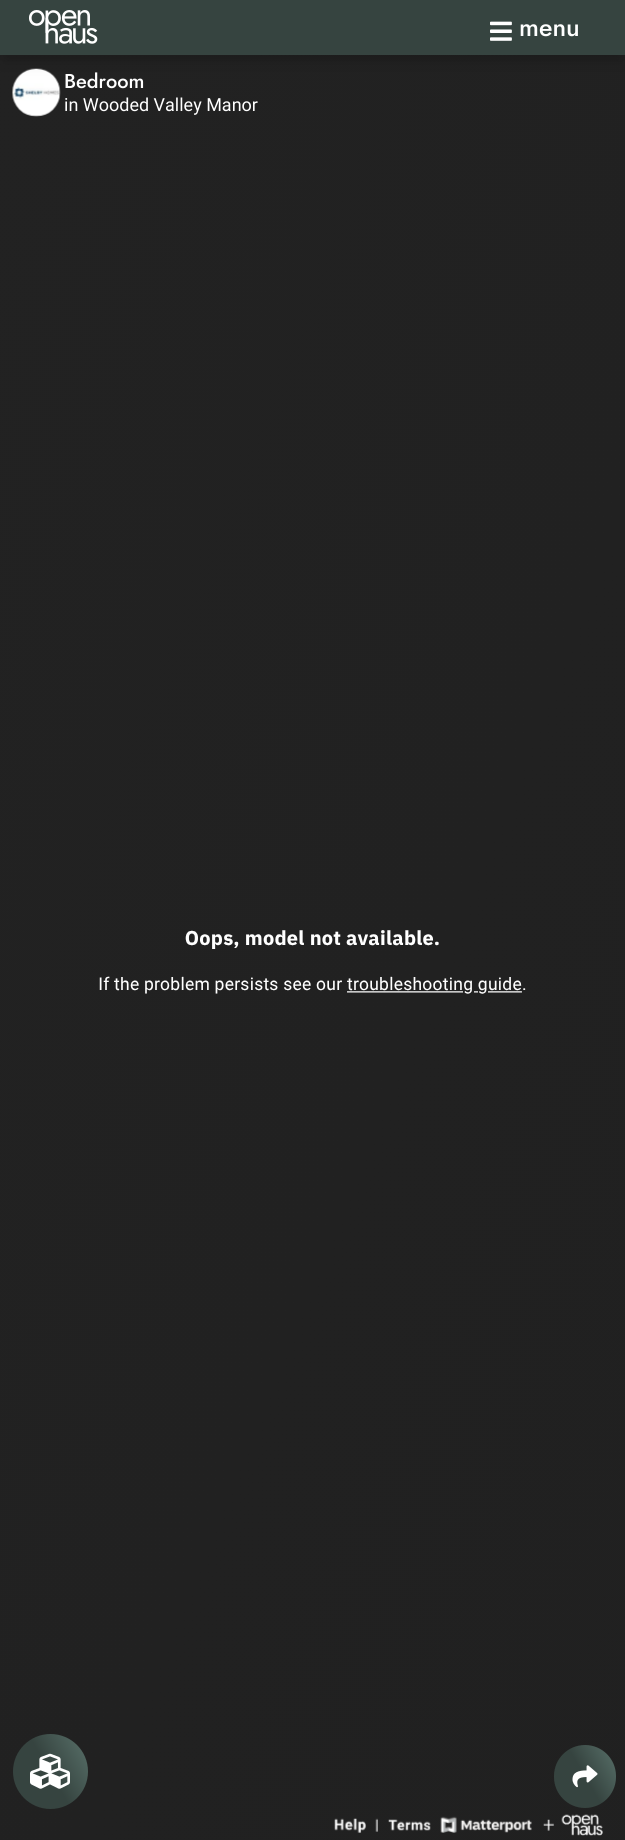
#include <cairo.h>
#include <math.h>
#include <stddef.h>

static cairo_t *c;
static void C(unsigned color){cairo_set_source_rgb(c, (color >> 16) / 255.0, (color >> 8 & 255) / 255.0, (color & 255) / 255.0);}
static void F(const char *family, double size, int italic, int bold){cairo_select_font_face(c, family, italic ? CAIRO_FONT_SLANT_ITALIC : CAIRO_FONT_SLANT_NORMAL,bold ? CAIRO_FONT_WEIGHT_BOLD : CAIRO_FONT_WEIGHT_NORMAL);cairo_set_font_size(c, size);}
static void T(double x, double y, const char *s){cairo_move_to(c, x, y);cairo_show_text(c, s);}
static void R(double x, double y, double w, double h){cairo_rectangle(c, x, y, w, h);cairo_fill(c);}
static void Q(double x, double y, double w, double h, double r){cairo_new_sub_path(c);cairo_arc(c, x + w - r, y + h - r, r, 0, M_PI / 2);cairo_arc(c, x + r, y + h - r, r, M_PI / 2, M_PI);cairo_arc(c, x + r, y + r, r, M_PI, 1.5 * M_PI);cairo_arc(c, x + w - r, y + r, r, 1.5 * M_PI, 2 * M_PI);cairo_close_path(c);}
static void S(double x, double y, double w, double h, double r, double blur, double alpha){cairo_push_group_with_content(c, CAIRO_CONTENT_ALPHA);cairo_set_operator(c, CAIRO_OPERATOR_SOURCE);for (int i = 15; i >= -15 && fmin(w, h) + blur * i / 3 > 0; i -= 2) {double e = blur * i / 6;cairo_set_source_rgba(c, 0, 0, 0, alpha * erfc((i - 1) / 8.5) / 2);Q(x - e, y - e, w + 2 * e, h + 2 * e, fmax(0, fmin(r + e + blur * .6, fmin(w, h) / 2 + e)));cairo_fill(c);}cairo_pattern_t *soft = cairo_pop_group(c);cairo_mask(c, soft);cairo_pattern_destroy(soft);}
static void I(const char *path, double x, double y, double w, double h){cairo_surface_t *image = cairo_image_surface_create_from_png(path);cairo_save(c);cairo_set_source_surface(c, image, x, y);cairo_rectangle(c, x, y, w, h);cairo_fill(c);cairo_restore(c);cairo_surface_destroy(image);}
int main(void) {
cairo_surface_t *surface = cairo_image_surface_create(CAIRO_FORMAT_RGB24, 625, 1840);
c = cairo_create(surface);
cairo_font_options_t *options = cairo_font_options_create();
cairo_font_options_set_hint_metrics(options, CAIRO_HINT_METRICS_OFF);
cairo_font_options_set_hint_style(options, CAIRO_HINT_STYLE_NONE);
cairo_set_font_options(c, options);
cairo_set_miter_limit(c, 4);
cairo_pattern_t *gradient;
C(0xffffff);
cairo_paint(c);
I("3.png",0,55,625,1785);
I("4.png",12,68,49,49);
C(0x000000);
S(6,15,613,43,0,6,.15);
S(0,5,625,55,0,11,.12);
C(0x364440);
R(0,0,625,55);
I("1.png",29,10,69,34);
I("2.png",490,21,22,20);
F("Jost Medium",25,0,0);
C(0xffffff);
T(519,36,"menu");
F("Jost Medium",20,0,0);
T(64,88,"Bedroom");
F("Roboto",18,0,0);
T(64,111,"in Wooded Valley Manor");
gradient = cairo_pattern_create_linear(5.6,1797,94,1746);
cairo_pattern_add_color_stop_rgba(gradient,0,0.212,0.267,0.251,1);
cairo_pattern_add_color_stop_rgba(gradient,.5,0.212,0.267,0.251,1);
cairo_pattern_add_color_stop_rgba(gradient,1,0.349,0.443,0.416,1);
cairo_set_source(c,gradient);
cairo_pattern_destroy(gradient);
cairo_new_path(c);
cairo_arc(c,50.5,1771.5,37.5,0,2 * M_PI);
cairo_fill(c);
I("5.png",30,1753,40,36);
gradient = cairo_pattern_create_linear(548,1798,622,1755);
cairo_pattern_add_color_stop_rgba(gradient,0,0.212,0.267,0.251,1);
cairo_pattern_add_color_stop_rgba(gradient,.5,0.212,0.267,0.251,1);
cairo_pattern_add_color_stop_rgba(gradient,1,0.349,0.443,0.416,1);
cairo_set_source(c,gradient);
cairo_pattern_destroy(gradient);
Q(554,1745,62,63,31);
cairo_fill(c);
I("6.png",572,1765,26,23);
I("7.png",334,1818,44,15);
I("8.png",388,1819,43,12);
I("9.png",440,1816,92,17);
I("10.png",543,1814,60,22);
cairo_surface_write_to_png(surface, "o.png");
cairo_font_options_destroy(options);
cairo_destroy(c);
cairo_surface_destroy(surface);
return 0;
}
